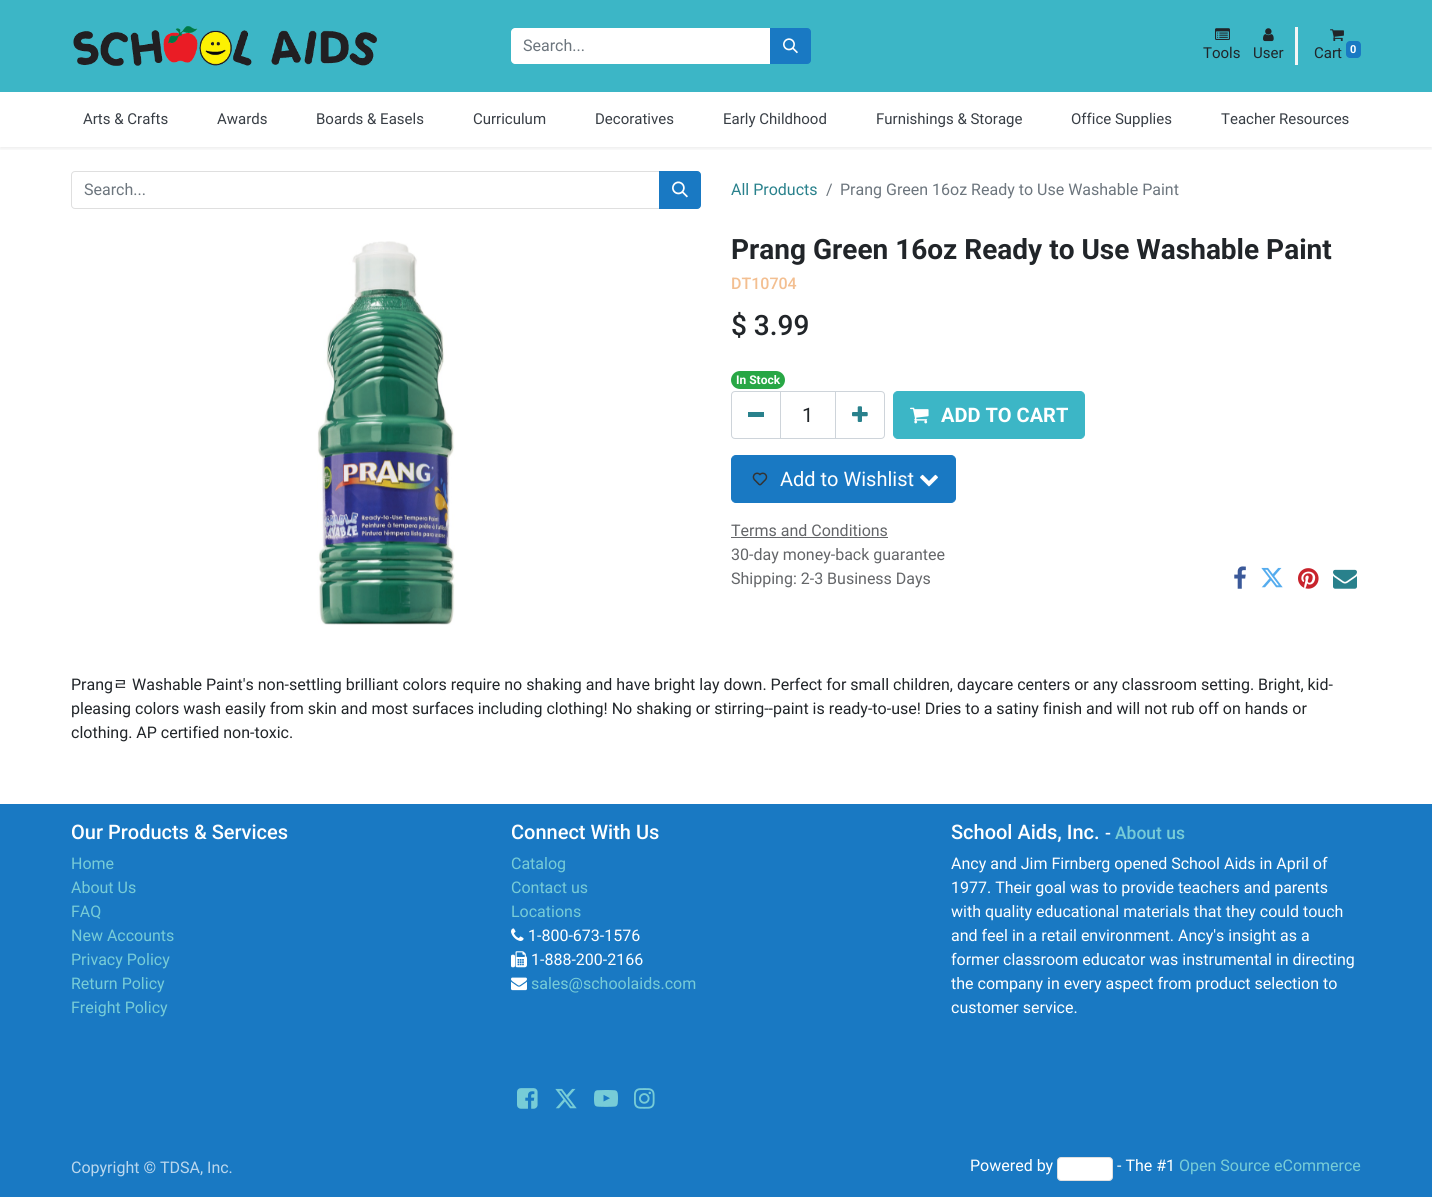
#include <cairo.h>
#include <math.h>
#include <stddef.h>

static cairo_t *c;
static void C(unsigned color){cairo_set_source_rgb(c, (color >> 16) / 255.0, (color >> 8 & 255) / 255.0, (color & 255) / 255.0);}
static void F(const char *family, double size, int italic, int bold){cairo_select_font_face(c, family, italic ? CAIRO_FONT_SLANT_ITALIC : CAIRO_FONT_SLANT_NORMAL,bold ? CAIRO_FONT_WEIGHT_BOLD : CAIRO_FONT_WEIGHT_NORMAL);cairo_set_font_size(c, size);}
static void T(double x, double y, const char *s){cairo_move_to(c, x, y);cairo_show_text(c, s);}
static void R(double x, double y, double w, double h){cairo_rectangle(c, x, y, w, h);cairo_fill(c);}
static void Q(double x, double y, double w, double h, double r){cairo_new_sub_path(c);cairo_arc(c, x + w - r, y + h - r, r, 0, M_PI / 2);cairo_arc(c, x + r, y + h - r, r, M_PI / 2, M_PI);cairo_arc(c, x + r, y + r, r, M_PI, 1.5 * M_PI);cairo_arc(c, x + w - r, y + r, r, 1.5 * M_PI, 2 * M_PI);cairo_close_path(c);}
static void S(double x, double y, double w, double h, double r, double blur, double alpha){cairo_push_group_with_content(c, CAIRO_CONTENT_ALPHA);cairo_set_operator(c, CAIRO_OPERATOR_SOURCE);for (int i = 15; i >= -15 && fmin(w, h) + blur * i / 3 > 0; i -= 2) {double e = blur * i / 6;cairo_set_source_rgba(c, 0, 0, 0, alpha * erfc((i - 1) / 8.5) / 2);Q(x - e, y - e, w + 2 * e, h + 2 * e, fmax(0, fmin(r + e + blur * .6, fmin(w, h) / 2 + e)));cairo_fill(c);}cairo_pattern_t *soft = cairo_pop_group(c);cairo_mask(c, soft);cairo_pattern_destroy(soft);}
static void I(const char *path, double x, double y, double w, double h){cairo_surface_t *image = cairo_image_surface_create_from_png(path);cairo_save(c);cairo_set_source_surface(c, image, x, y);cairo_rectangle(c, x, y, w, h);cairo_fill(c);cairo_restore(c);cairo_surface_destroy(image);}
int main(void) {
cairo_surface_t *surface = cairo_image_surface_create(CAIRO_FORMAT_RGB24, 1432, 1197);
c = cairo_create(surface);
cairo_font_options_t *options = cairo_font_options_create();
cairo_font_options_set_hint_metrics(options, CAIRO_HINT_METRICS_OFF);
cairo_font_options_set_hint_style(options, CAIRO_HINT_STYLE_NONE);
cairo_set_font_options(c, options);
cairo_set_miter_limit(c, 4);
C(0xffffff);
cairo_paint(c);
C(0x3cb6c6);
R(0,0,1432,92);
I("1.png",73,26,304,40);
C(0xffffff);
cairo_new_path(c);
cairo_move_to(c,515,28);
cairo_line_to(c,771,28);
cairo_line_to(c,771,64);
cairo_line_to(c,515,64);
cairo_curve_to(c,513,64,511,62,511,60);
cairo_line_to(c,511,32);
cairo_curve_to(c,511,30,513,28,515,28);
cairo_close_path(c);
cairo_fill(c);
F("Roboto",16,0,0);
C(0x6c757d);
T(523,51,"Search...");
C(0x1979c3);
cairo_new_path(c);
cairo_move_to(c,770.5,28.5);
cairo_line_to(c,807,28.5);
cairo_curve_to(c,809,28.5,810.5,30,810.5,32);
cairo_line_to(c,810.5,60);
cairo_curve_to(c,810.5,62,809,63.5,807,63.5);
cairo_line_to(c,770.5,63.5);
cairo_close_path(c);
cairo_fill_preserve(c);
cairo_set_line_width(c,1);
cairo_stroke(c);
I("2.png",783,38,15,16);
I("3.png",1215,28,15,12);
F("Roboto",15,0,0);
C(0x212529);
T(1203,58,"Tools");
I("4.png",1263,28,11,14);
T(1253,58,"User");
C(0xf6f6f6);
R(1295,27,3,38);
I("5.png",1330,29,14,12);
C(0x212529);
T(1314,58,"Cart");
C(0x1979c3);
Q(1346,41,15,17,4);
cairo_fill(c);
F("Roboto",11,0,1);
C(0xffffff);
T(1350,53,"0");
cairo_save(c);
cairo_rectangle(c,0,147,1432,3);
cairo_clip(c);
C(0x000000);
S(0,94,1432,55,0,2,.07);
cairo_restore(c);
F("Roboto",15,0,0);
C(0x383e45);
T(83,124,"Arts & Crafts");
T(217,124,"Awards");
T(316,124,"Boards & Easels");
T(473,124,"Curriculum");
T(595,124,"Decoratives");
T(723,124,"Early Childhood");
T(876,124,"Furnishings & Storage");
T(1071,124,"Office Supplies");
T(1221,124,"Teacher Resources");
cairo_new_path(c);
cairo_move_to(c,75,171.5);
cairo_line_to(c,659.5,171.5);
cairo_line_to(c,659.5,208.5);
cairo_line_to(c,75,208.5);
cairo_curve_to(c,73,208.5,71.5,207,71.5,205);
cairo_line_to(c,71.5,175);
cairo_curve_to(c,71.5,173,73,171.5,75,171.5);
cairo_close_path(c);
C(0xdfdfdf);
cairo_stroke(c);
F("Roboto",16,0,0);
C(0x6c757d);
T(84,195,"Search...");
C(0x1979c3);
cairo_new_path(c);
cairo_move_to(c,659.5,171.5);
cairo_line_to(c,697,171.5);
cairo_curve_to(c,699,171.5,700.5,173,700.5,175);
cairo_line_to(c,700.5,205);
cairo_curve_to(c,700.5,207,699,208.5,697,208.5);
cairo_line_to(c,659.5,208.5);
cairo_close_path(c);
cairo_fill_preserve(c);
cairo_stroke(c);
I("6.png",672,181,16,17);
C(0x29818c);
T(731,195,"All Products");
C(0x6c757d);
T(826,195,"/");
T(840,195,"Prang Green 16oz Ready to Use Washable Paint");
I("7.png",317,241,138,384);
F("Roboto",28,0,1);
C(0x212529);
T(731,259,"Prang Green 16oz Ready to Use Washable Paint");
F("Roboto Medium",16,0,0);
C(0xf3bf91);
T(731,289,"DT10704");
F("Roboto Medium",28,0,0);
C(0x212529);
T(731,335,"$ 3.99");
C(0x28a745);
Q(731,371,54,18,9);
cairo_fill(c);
F("Roboto",12,0,1);
C(0xffffff);
T(736,384,"In Stock");
cairo_rectangle(c,780.5,391.5,55,47);
C(0xced4da);
cairo_stroke(c);
cairo_new_path(c);
cairo_move_to(c,735,391.5);
cairo_line_to(c,780.5,391.5);
cairo_line_to(c,780.5,438.5);
cairo_line_to(c,735,438.5);
cairo_curve_to(c,733,438.5,731.5,437,731.5,435);
cairo_line_to(c,731.5,395);
cairo_curve_to(c,731.5,393,733,391.5,735,391.5);
cairo_close_path(c);
cairo_stroke(c);
C(0x29818c);
R(748,412,16,5);
F("Roboto",20,0,0);
C(0x212529);
T(802,422,"1");
cairo_new_path(c);
cairo_move_to(c,835.5,391.5);
cairo_line_to(c,881,391.5);
cairo_curve_to(c,883,391.5,884.5,393,884.5,395);
cairo_line_to(c,884.5,435);
cairo_curve_to(c,884.5,437,883,438.5,881,438.5);
cairo_line_to(c,835.5,438.5);
cairo_close_path(c);
C(0xced4da);
cairo_stroke(c);
I("8.png",852,406,16,16);
C(0x3cb6c6);
Q(893.5,391.5,191,47,4.5);
cairo_fill_preserve(c);
cairo_stroke(c);
I("9.png",910,407,19,17);
F("Roboto",20,0,1);
C(0xffffff);
T(941,422,"ADD TO CART");
C(0x1979c3);
Q(731.5,455.5,224,47,4.5);
cairo_fill_preserve(c);
cairo_stroke(c);
I("10.png",752,472,16,14);
F("Roboto",20,0,0);
C(0xffffff);
T(780,486,"Add to Wishlist");
I("11.png",920,474,18,13);
F("Roboto",16,0,0);
C(0x646669);
T(731,536,"Terms and Conditions");
R(731,537,157,1);
T(731,560,"30-day money-back guarantee");
T(731,584,"Shipping: 2-3 Business Days");
I("12.png",1234,566,12,23);
I("13.png",1261,567,22,21);
I("14.png",1298,568,21,21);
I("15.png",1333,569,24,20);
C(0x212529);
T(71,690,"Prang");
F("Chiron Hei HK",16,0,0);
T(113,690,"ﾩ");
F("Roboto",16,0,0);
T(132,690,"Washable Paint's non-settling brilliant colors require no shaking and have bright lay down. Perfect for small children, daycare centers or any classroom setting. Bright, kid-");
T(71,714,"pleasing colors wash easily from skin and most surfaces including clothing! No shaking or stirring--paint is ready-to-use! Dries to a satiny finish and will not rub off on hands or");
T(71,738,"clothing. AP certified non-toxic.");
C(0x1979c3);
R(0,804,1432,393);
F("Roboto Medium",20,0,0);
C(0xffffff);
T(71,839,"Our Products & Services");
F("Roboto",16,0,0);
C(0x77ccd7);
T(71,869,"Home");
T(71,893,"About Us");
T(71,917,"FAQ");
T(71,941,"New Accounts");
T(71,965,"Privacy Policy");
T(71,989,"Return Policy");
T(71,1013,"Freight Policy");
F("Roboto Medium",20,0,0);
C(0xffffff);
T(511,839,"Connect With Us");
F("Roboto",16,0,0);
C(0x77ccd7);
T(511,869,"Catalog");
T(511,893,"Contact us");
T(511,917,"Locations");
I("16.png",511,928,13,13);
C(0xffffff);
T(528,941,"1-800-673-1576");
I("17.png",511,951,16,17);
T(531,965,"1-888-200-2166");
I("18.png",511,977,16,14);
C(0x77ccd7);
T(531,989,"sales@schoolaids.com");
I("19.png",517,1088,21,21);
I("20.png",555,1088,22,21);
I("21.png",594,1090,24,17);
I("22.png",634,1088,21,21);
F("Roboto Medium",20,0,0);
C(0xffffff);
T(951,839,"School Aids, Inc.");
F("Roboto Medium",17.5,0,0);
T(1105,839,"-");
C(0x77ccd7);
T(1115,839,"About us");
F("Roboto",16,0,0);
C(0xffffff);
T(951,869,"Ancy and Jim Firnberg opened School Aids in April of");
T(951,893,"1977. Their goal was to provide teachers and parents");
T(951,917,"with quality educational materials that they could touch");
T(951,941,"and feel in a retail environment. Ancy's insight as a");
T(951,965,"former classroom educator was instrumental in directing");
T(951,989,"the company in every aspect from product selection to");
T(951,1013,"customer service.");
C(0xbad7ed);
T(71,1173,"Copyright © TDSA, Inc.");
C(0xffffff);
T(970,1171,"Powered by");
Q(1057.5,1157.5,55,23,3.5);
cairo_fill_preserve(c);
C(0xdfdfdf);
cairo_stroke(c);
C(0xffffff);
T(1117,1171,"- The #1");
C(0x77ccd7);
T(1179,1171,"Open Source eCommerce");
cairo_surface_write_to_png(surface, "o.png");
cairo_font_options_destroy(options);
cairo_destroy(c);
cairo_surface_destroy(surface);
return 0;
}
